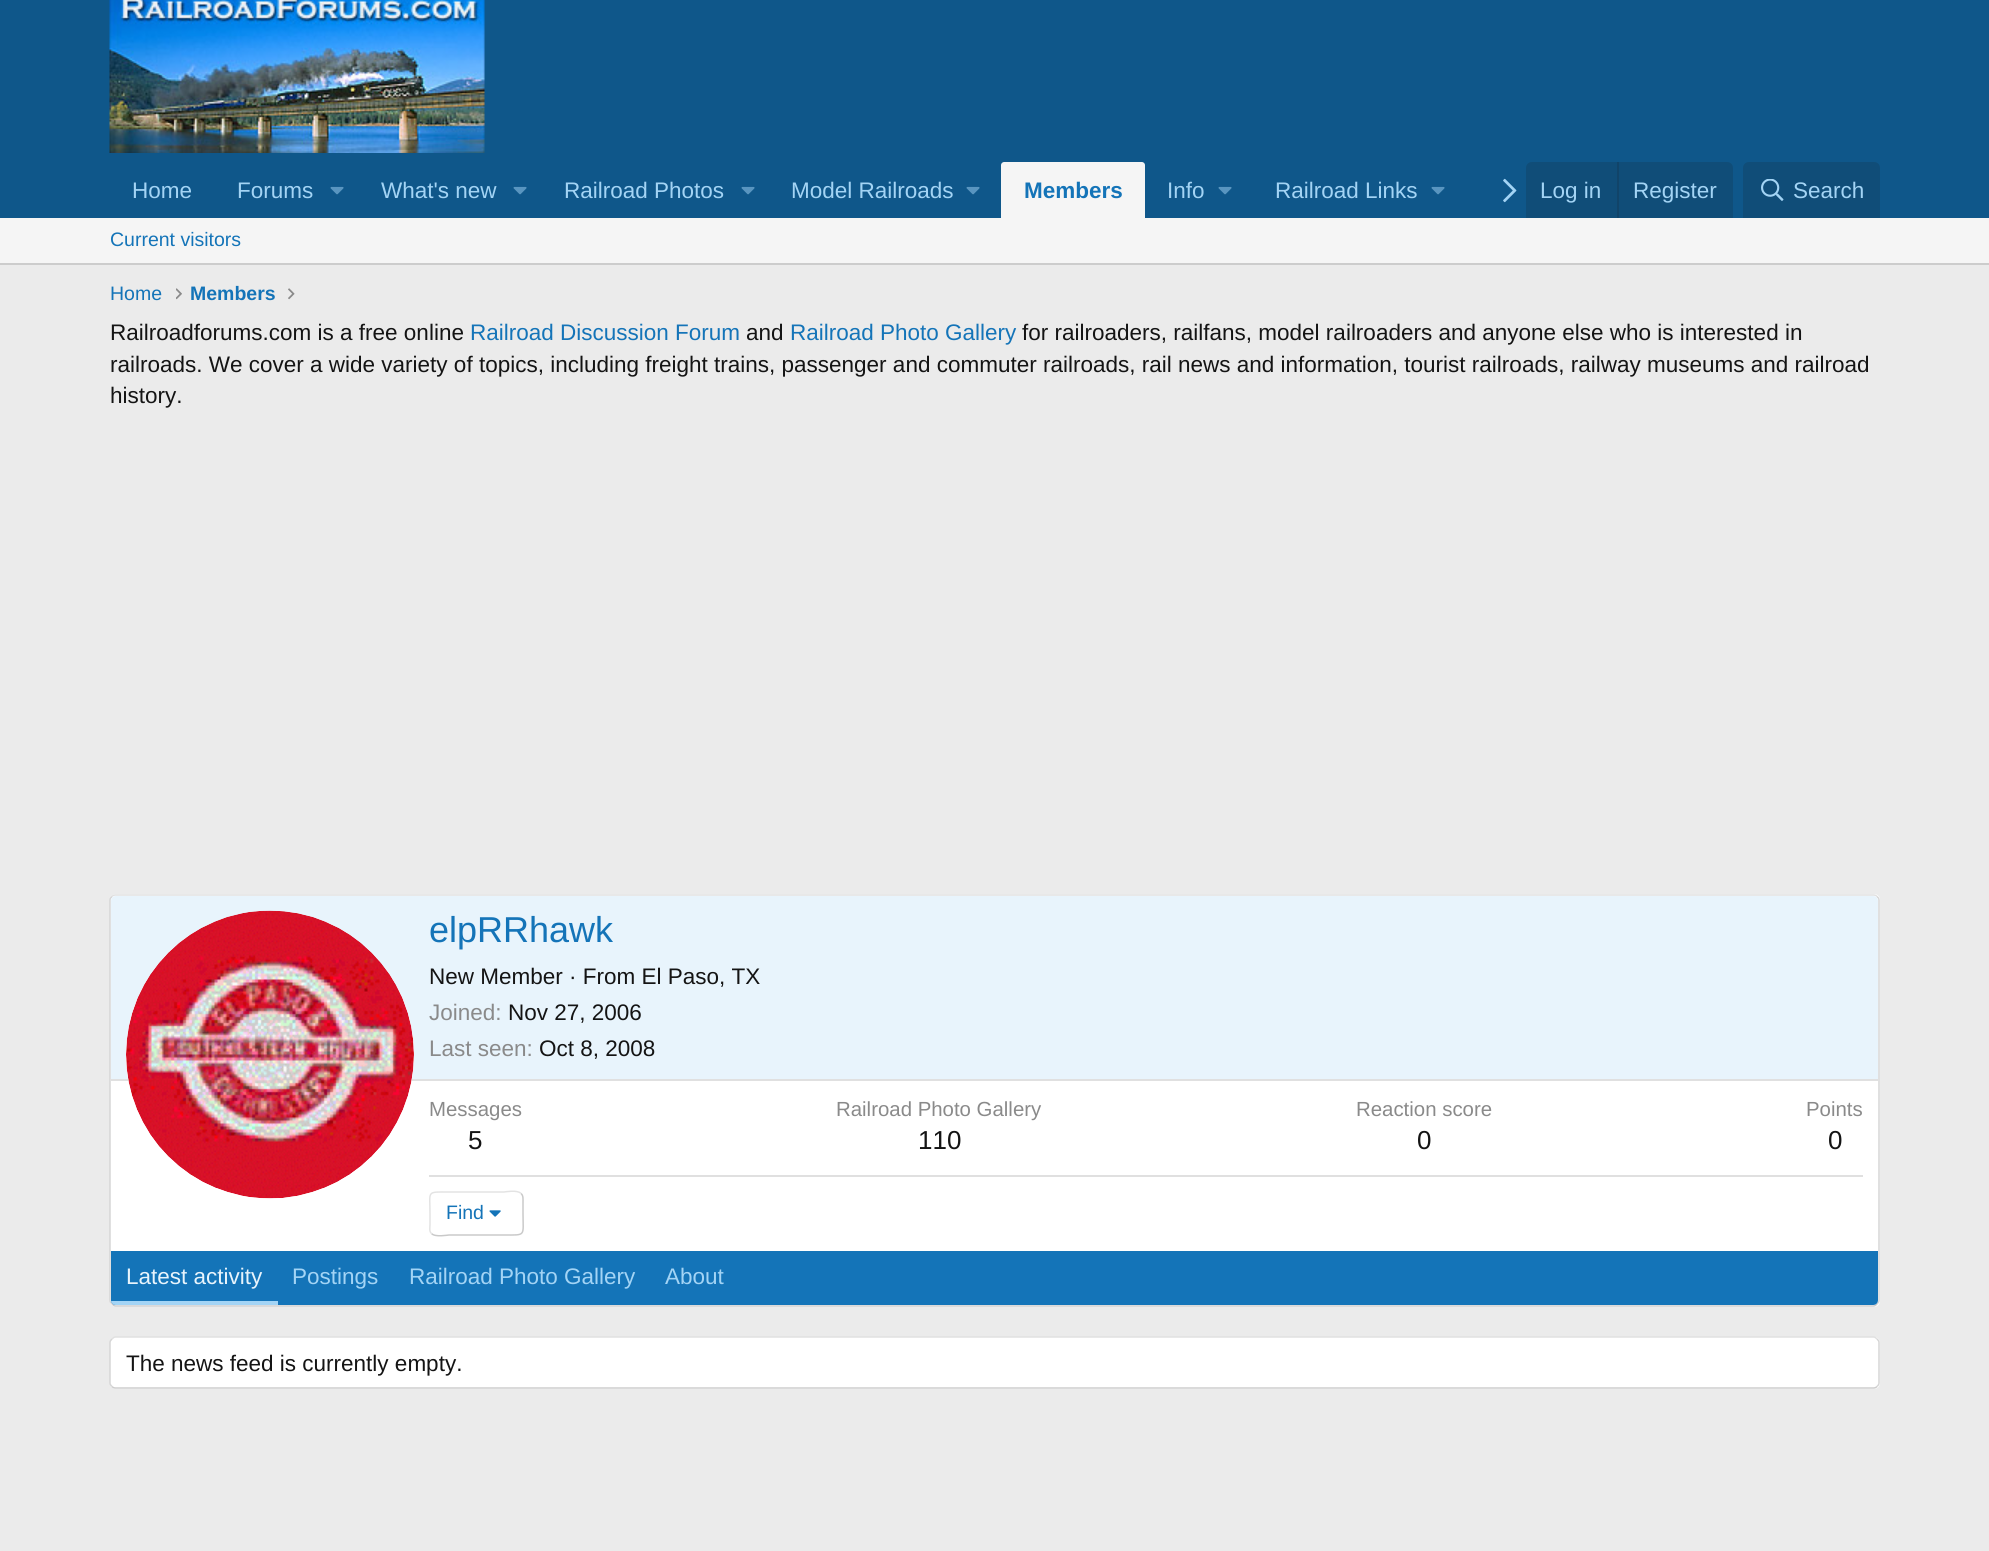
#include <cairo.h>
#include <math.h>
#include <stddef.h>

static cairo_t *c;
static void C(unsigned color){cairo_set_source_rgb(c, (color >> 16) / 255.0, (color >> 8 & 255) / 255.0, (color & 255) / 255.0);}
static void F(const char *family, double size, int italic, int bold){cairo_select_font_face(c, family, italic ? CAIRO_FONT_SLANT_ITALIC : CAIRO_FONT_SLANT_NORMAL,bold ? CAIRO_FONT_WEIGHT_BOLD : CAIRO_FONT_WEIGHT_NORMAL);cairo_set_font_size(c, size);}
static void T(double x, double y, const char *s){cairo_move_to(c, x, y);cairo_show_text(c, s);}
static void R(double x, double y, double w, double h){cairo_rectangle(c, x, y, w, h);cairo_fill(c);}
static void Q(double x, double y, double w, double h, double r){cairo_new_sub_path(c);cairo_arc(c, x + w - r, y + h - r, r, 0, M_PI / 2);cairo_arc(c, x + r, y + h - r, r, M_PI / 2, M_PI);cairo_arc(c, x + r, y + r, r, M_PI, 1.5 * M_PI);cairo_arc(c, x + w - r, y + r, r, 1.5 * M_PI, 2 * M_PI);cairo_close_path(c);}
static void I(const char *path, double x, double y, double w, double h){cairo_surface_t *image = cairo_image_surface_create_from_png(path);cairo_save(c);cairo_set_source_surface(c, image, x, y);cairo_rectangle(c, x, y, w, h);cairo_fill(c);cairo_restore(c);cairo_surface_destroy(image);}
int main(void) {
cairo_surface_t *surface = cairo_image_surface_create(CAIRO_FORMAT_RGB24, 1989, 1551);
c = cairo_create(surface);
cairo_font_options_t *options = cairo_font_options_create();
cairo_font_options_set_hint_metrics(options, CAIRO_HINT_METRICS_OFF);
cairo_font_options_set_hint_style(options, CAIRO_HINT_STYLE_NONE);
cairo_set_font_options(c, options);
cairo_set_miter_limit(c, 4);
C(0xebebeb);
cairo_paint(c);
C(0x0f578a);
R(0,0,1989,218);
I("1.png",109,0,376,153);
F("Liberation Sans",22.5,0,0);
C(0xa3d4f5);
T(132,198,"Home");
T(237,198,"Forums");
I("2.png",330,186,14,9);
T(381,198,"What's new");
I("2.png",513,186,14,9);
T(564,198,"Railroad Photos");
I("2.png",741,186,14,9);
T(791,198,"Model Railroads");
I("2.png",966,186,14,9);
C(0xf5f5f5);
cairo_new_path(c);
cairo_move_to(c,1004,162);
cairo_line_to(c,1142,162);
cairo_curve_to(c,1143.5,162,1145,163.5,1145,165);
cairo_line_to(c,1145,218);
cairo_line_to(c,1001,218);
cairo_line_to(c,1001,165);
cairo_curve_to(c,1001,163.5,1002.5,162,1004,162);
cairo_close_path(c);
cairo_fill(c);
F("Liberation Sans",22.5,0,1);
C(0x1474b8);
T(1024,198,"Members");
F("Liberation Sans",22.5,0,0);
C(0xa3d4f5);
T(1167,198,"Info");
I("2.png",1218,186,14,9);
T(1275,198,"Railroad Links");
I("2.png",1431,186,14,9);
I("3.png",1503,178,14,25);
C(0x104d78);
cairo_new_path(c);
cairo_move_to(c,1532,162);
cairo_line_to(c,1727,162);
cairo_curve_to(c,1730.5,162,1733,164.5,1733,168);
cairo_line_to(c,1733,218);
cairo_line_to(c,1526,218);
cairo_line_to(c,1526,168);
cairo_curve_to(c,1526,164.5,1528.5,162,1532,162);
cairo_close_path(c);
cairo_fill(c);
C(0xa3d4f5);
T(1540,198,"Log in");
C(0x114469);
R(1617,162,2,56);
C(0xa3d4f5);
T(1633,198,"Register");
C(0x104d78);
cairo_new_path(c);
cairo_move_to(c,1749,162);
cairo_line_to(c,1874,162);
cairo_curve_to(c,1877.5,162,1880,164.5,1880,168);
cairo_line_to(c,1880,218);
cairo_line_to(c,1743,218);
cairo_line_to(c,1743,168);
cairo_curve_to(c,1743,164.5,1745.5,162,1749,162);
cairo_close_path(c);
cairo_fill(c);
I("4.png",1761,179,23,22);
C(0xa3d4f5);
T(1793,198,"Search");
C(0xf5f5f5);
R(0,218,1989,45);
C(0xcccccc);
R(0,263,1989,2);
F("Liberation Sans",19.5,0,0);
C(0x1474b8);
T(110,246,"Current visitors");
T(110,300,"Home");
I("5.png",176,288,6,12);
F("Liberation Sans",19.5,0,1);
T(190,300,"Members");
I("6.png",288,288,7,12);
F("Liberation Sans",22.5,0,0);
C(0x141414);
T(110,340,"Railroadforums.com is a free online");
C(0x1474b8);
T(470,340,"Railroad Discussion Forum");
C(0x141414);
T(746,340,"and");
C(0x1474b8);
T(790,340,"Railroad Photo Gallery");
C(0x141414);
T(1022,340,"for railroaders, railfans, model railroaders and anyone else who is interested in");
T(110,372,"railroads. We cover a wide variety of topics, including freight trains, passenger and commuter railroads, rail news and information, tourist railroads, railway museums and railroad");
T(110,403,"history.");
C(0xffffff);
Q(110,894,1770,413,6);
cairo_fill(c);
cairo_new_path(c);
cairo_move_to(c,112,896.5);
cairo_curve_to(c,113,895.5,114,895,115.5,895);
cairo_line_to(c,1873.5,895);
cairo_curve_to(c,1875,895,1876,895.5,1877,896.5);
C(0xe0e0e0);
cairo_set_line_width(c,1.5);
cairo_stroke(c);
cairo_new_path(c);
cairo_move_to(c,1877,896.5);
cairo_curve_to(c,1878,897.5,1879,898.5,1879,900);
cairo_line_to(c,1879,1300.5);
cairo_curve_to(c,1879,1302,1878,1303,1877,1304);
C(0xd6d6d6);
cairo_stroke(c);
cairo_new_path(c);
cairo_move_to(c,1877,1304);
cairo_curve_to(c,1876,1305,1875,1306,1873.5,1306);
cairo_line_to(c,115.5,1306);
cairo_curve_to(c,114,1306,113,1305,112,1304);
C(0xcccccc);
cairo_stroke(c);
cairo_new_path(c);
cairo_move_to(c,112,1304);
cairo_curve_to(c,111,1303,110,1302,110,1300.5);
cairo_line_to(c,110,900);
cairo_curve_to(c,110,898.5,111,897.5,112,896.5);
C(0xd6d6d6);
cairo_stroke(c);
C(0xe8f4fc);
cairo_new_path(c);
cairo_move_to(c,116,896);
cairo_line_to(c,1873,896);
cairo_curve_to(c,1876,896,1878,898,1878,901);
cairo_line_to(c,1878,1080);
cairo_line_to(c,111,1080);
cairo_line_to(c,111,901);
cairo_curve_to(c,111,898,113,896,116,896);
cairo_close_path(c);
cairo_fill(c);
C(0xe0e0e0);
R(111,1079,1767,2);
C(0xffffff);
cairo_arc(c,270,1055,144,0,2 * M_PI);
cairo_fill(c);
I("7.png",126,910,288,289);
F("Liberation Sans",36,0,0);
C(0x1474b8);
T(429,942,"elpRRhawk");
F("Liberation Sans",22.5,0,0);
C(0x141414);
T(429,984,"New Member · From El Paso, TX");
C(0x8a8a8a);
T(429,1020,"Joined:");
C(0x141414);
T(508,1020,"Nov 27, 2006");
C(0x8a8a8a);
T(429,1056,"Last seen:");
C(0x141414);
T(539,1056,"Oct 8, 2008");
F("Liberation Sans",20.4,0,0);
C(0x8a8a8a);
T(429,1116,"Messages");
F("Liberation Sans",26,0,0);
C(0x141414);
T(468,1149,"5");
F("Liberation Sans",20.4,0,0);
C(0x8a8a8a);
T(836,1116,"Railroad Photo Gallery");
F("Liberation Sans",26,0,0);
C(0x141414);
T(918,1149,"110");
F("Liberation Sans",20.4,0,0);
C(0x8a8a8a);
T(1356,1116,"Reaction score");
F("Liberation Sans",26,0,0);
C(0x141414);
T(1417,1149,"0");
F("Liberation Sans",20.4,0,0);
C(0x8a8a8a);
T(1806,1116,"Points");
F("Liberation Sans",26,0,0);
C(0x141414);
T(1828,1149,"0");
C(0xe0e0e0);
R(429,1175,1434,2);
cairo_new_path(c);
cairo_move_to(c,521,1193.5);
cairo_curve_to(c,523.5,1195.5,523,1199.5,523,1202.5);
cairo_line_to(c,523,1213.5);
cairo_curve_to(c,523,1236.5,526.5,1235,504,1235);
cairo_line_to(c,449,1235);
cairo_curve_to(c,448,1235,435,1237.5,431.5,1233.5);
C(0xc9c9c9);
cairo_stroke(c);
cairo_new_path(c);
cairo_move_to(c,431.5,1233.5);
cairo_curve_to(c,429,1231.5,430,1227.5,430,1224.5);
cairo_line_to(c,430,1213.5);
cairo_curve_to(c,430,1190.5,426,1192,449,1192);
cairo_line_to(c,504,1192);
cairo_curve_to(c,504.5,1192,517.5,1189.5,521,1193.5);
C(0xe3e3e3);
cairo_stroke(c);
F("Liberation Sans",19.5,0,0);
C(0x1474b8);
T(446,1219,"Find");
I("8.png",489,1210,12,7);
cairo_new_path(c);
cairo_move_to(c,111,1251);
cairo_line_to(c,1878,1251);
cairo_line_to(c,1878,1300);
cairo_curve_to(c,1878,1303,1876,1305,1873,1305);
cairo_line_to(c,116,1305);
cairo_curve_to(c,113,1305,111,1303,111,1300);
cairo_close_path(c);
cairo_fill(c);
cairo_save(c);
cairo_new_path(c);
cairo_move_to(c,111,1251);
cairo_line_to(c,1878,1251);
cairo_line_to(c,1878,1300);
cairo_curve_to(c,1878,1303,1876,1305,1873,1305);
cairo_line_to(c,116,1305);
cairo_curve_to(c,113,1305,111,1303,111,1300);
cairo_close_path(c);
cairo_clip(c);
C(0xa3d4f5);
R(111,1301,167,4);
cairo_restore(c);
F("Liberation Sans",22.5,0,0);
C(0xe8f4fc);
T(126,1284,"Latest activity");
C(0xa3d4f5);
T(292,1284,"Postings");
T(409,1284,"Railroad Photo Gallery");
T(665,1284,"About");
C(0xffffff);
Q(110,1337,1770,52,6);
cairo_fill(c);
cairo_new_path(c);
cairo_move_to(c,112,1339);
cairo_curve_to(c,113,1338,114,1337,115.5,1337);
cairo_line_to(c,1873.5,1337);
cairo_curve_to(c,1875,1337,1876,1338,1877,1339);
C(0xe0e0e0);
cairo_stroke(c);
cairo_new_path(c);
cairo_move_to(c,1877,1339);
cairo_curve_to(c,1878,1340,1879,1341,1879,1342.5);
cairo_line_to(c,1879,1383);
cairo_curve_to(c,1879,1384.5,1878,1385.5,1877,1386.5);
C(0xd6d6d6);
cairo_stroke(c);
cairo_new_path(c);
cairo_move_to(c,1877,1386.5);
cairo_curve_to(c,1876,1387.5,1875,1388,1873.5,1388);
cairo_line_to(c,115.5,1388);
cairo_curve_to(c,114,1388,113,1387.5,112,1386.5);
C(0xcccccc);
cairo_stroke(c);
cairo_new_path(c);
cairo_move_to(c,112,1386.5);
cairo_curve_to(c,111,1385.5,110,1384.5,110,1383);
cairo_line_to(c,110,1342.5);
cairo_curve_to(c,110,1341,111,1340,112,1339);
C(0xd6d6d6);
cairo_stroke(c);
C(0x141414);
T(126,1371,"The news feed is currently empty.");
cairo_surface_write_to_png(surface, "o.png");
cairo_font_options_destroy(options);
cairo_destroy(c);
cairo_surface_destroy(surface);
return 0;
}
